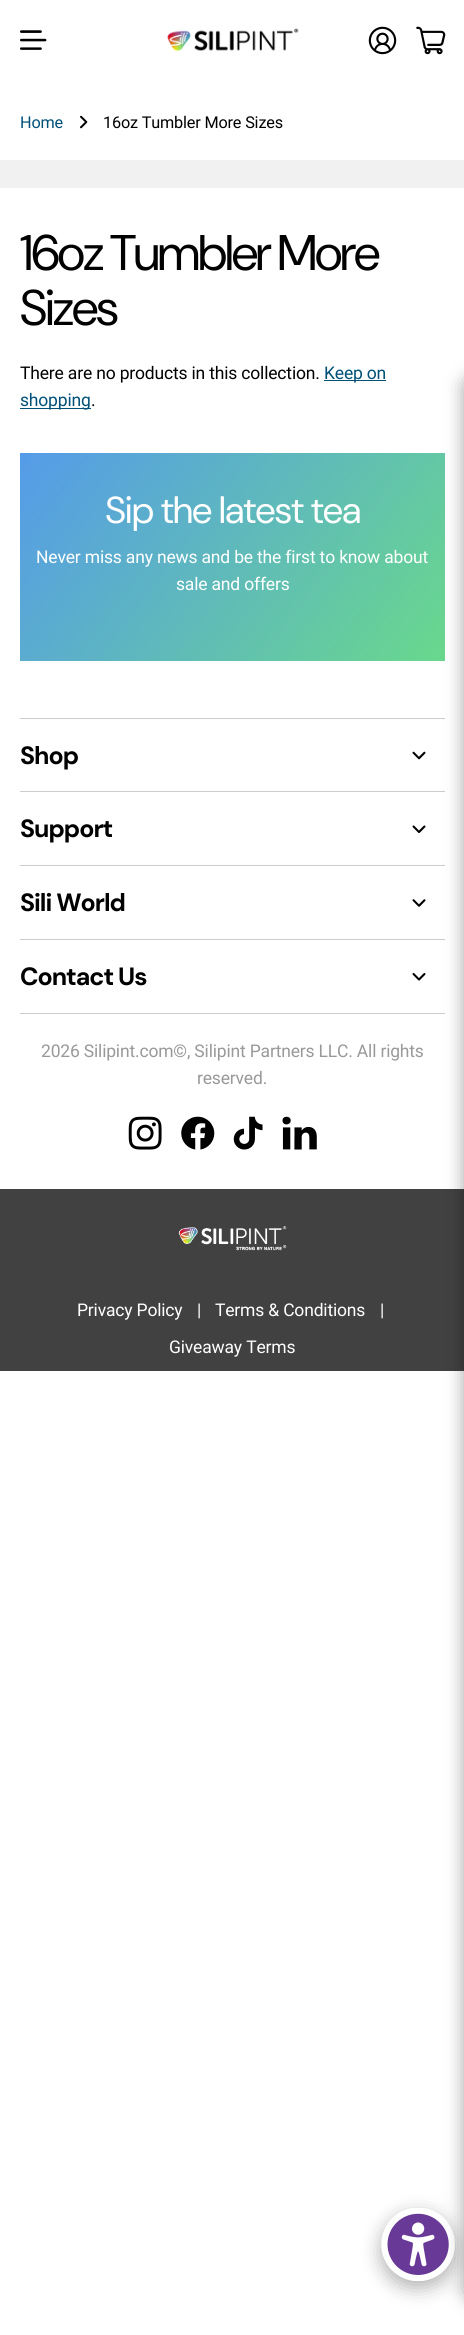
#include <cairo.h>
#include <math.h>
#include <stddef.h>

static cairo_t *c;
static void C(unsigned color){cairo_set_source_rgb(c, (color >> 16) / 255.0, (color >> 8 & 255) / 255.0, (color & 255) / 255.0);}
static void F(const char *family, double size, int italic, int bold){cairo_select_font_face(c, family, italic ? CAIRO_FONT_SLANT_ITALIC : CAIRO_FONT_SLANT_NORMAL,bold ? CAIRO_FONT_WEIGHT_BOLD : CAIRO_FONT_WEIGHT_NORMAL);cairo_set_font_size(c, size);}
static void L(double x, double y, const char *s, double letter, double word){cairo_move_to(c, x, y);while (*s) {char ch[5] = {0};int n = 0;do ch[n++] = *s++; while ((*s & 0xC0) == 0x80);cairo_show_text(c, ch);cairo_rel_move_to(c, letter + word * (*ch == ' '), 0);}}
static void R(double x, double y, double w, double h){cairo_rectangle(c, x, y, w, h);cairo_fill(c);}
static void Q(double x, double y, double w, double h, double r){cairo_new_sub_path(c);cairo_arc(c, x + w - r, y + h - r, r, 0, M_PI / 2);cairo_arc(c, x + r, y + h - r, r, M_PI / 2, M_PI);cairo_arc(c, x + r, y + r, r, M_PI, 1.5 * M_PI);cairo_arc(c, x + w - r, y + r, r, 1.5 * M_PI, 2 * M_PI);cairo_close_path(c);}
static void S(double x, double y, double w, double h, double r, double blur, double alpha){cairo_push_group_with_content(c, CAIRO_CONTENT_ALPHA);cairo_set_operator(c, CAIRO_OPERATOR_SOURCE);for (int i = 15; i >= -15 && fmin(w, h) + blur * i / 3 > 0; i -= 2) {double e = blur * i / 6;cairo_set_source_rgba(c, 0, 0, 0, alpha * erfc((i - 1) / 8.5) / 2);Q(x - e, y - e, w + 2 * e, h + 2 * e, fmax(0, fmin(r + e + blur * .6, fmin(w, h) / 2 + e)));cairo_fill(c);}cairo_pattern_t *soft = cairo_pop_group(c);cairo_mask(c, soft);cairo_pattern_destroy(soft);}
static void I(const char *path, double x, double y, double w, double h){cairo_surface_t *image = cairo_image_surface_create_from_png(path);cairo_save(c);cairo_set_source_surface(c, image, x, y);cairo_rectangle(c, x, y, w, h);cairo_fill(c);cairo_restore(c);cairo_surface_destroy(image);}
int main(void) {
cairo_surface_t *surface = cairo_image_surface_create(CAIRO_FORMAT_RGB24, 464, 2335);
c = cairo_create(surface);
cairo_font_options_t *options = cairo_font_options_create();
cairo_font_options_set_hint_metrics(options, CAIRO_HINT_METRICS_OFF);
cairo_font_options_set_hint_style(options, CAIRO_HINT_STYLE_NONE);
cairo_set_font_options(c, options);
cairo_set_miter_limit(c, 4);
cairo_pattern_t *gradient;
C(0xffffff);
cairo_paint(c);
I("1.png",20,30,27,20);
I("2.png",167,28,132,24);
I("3.png",368,26,29,29);
I("4.png",416,26,30,29);
F("Roboto",16.25,0,0);
C(0x005077);
L(20,128,"Home",-.18,0);
I("5.png",80,115,8,14);
C(0x020101);
L(103,128,"16oz Tumbler More Sizes",-.18,0);
C(0xf1f1f1);
R(0,160,464,28);
F("DM Sans",50,0,0);
C(0x020101);
L(20,270,"16oz Tumbler More",-2,0);
L(20,325,"Sizes",-2,0);
F("Roboto",17.5,0,0);
L(20,379,"There are no products in this collection.",-.18,0);
C(0x005077);
R(324,380,62,1);
L(324,379,"Keep on",-.18,0);
R(20,408,71,1);
L(20,406,"shopping",-.18,0);
C(0x020101);
L(91,406,".",-.18,0);
gradient = cairo_pattern_create_linear(47,417,418,697);
cairo_pattern_add_color_stop_rgba(gradient,0,0.333,0.608,0.914,1);
cairo_pattern_add_color_stop_rgba(gradient,1,0.412,0.847,0.549,1);
cairo_set_source(c,gradient);
cairo_pattern_destroy(gradient);
R(20,453,425,208);
F("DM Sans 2",37.5,0,0);
C(0xffffff);
L(105,523,"Sip the latest tea",-1.5,0);
F("Roboto",17.5,0,0);
L(36,563,"Never miss any news and be the first to know about",-.18,0);
L(176,590,"sale and offers",-.18,0);
C(0xcccccc);
R(20,718,425,1);
F("DM Sans",25,0,1);
C(0x020101);
L(20,764,"Shop",-1,0);
I("6.png",412,751,14,9);
C(0xcccccc);
R(20,791,425,1);
C(0x020101);
L(20,837,"Support",-1,0);
I("7.png",412,825,14,8);
C(0xcccccc);
R(20,865,425,1);
C(0x020101);
L(20,911,"Sili World",-1,0);
I("8.png",412,899,14,8);
C(0xcccccc);
R(20,939,425,1);
R(20,1013,425,1);
C(0x020101);
L(20,985,"Contact Us",-1,0);
I("9.png",412,973,14,8);
F("Roboto",17.5,0,0);
C(0x9a9999);
L(41,1057,"2026 Silipint.com©, Silipint Partners LLC. All rights",-.18,0);
L(197,1084,"reserved.",-.18,0);
I("10.png",128,1116,34,34);
I("11.png",181,1116,34,34);
I("12.png",233,1116,30,34);
I("13.png",282,1116,35,34);
C(0x414141);
R(0,1189,464,182);
I("14.png",178,1226,109,25);
C(0xffffff);
L(77,1316,"Privacy Policy",-.18,0);
L(197,1316,"|",-.18,0);
L(215,1316,"Terms & Conditions",-.18,0);
L(380,1316,"|",-.18,0);
L(169,1353,"Giveaway Terms",-.18,0);
C(0x000000);
S(381,2214,74,74,37,9.5,.3);
I("15.png",381,2208,74,73);
S(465,378,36,1920,8,9.5,.4);
cairo_surface_write_to_png(surface, "o.png");
cairo_font_options_destroy(options);
cairo_destroy(c);
cairo_surface_destroy(surface);
return 0;
}
